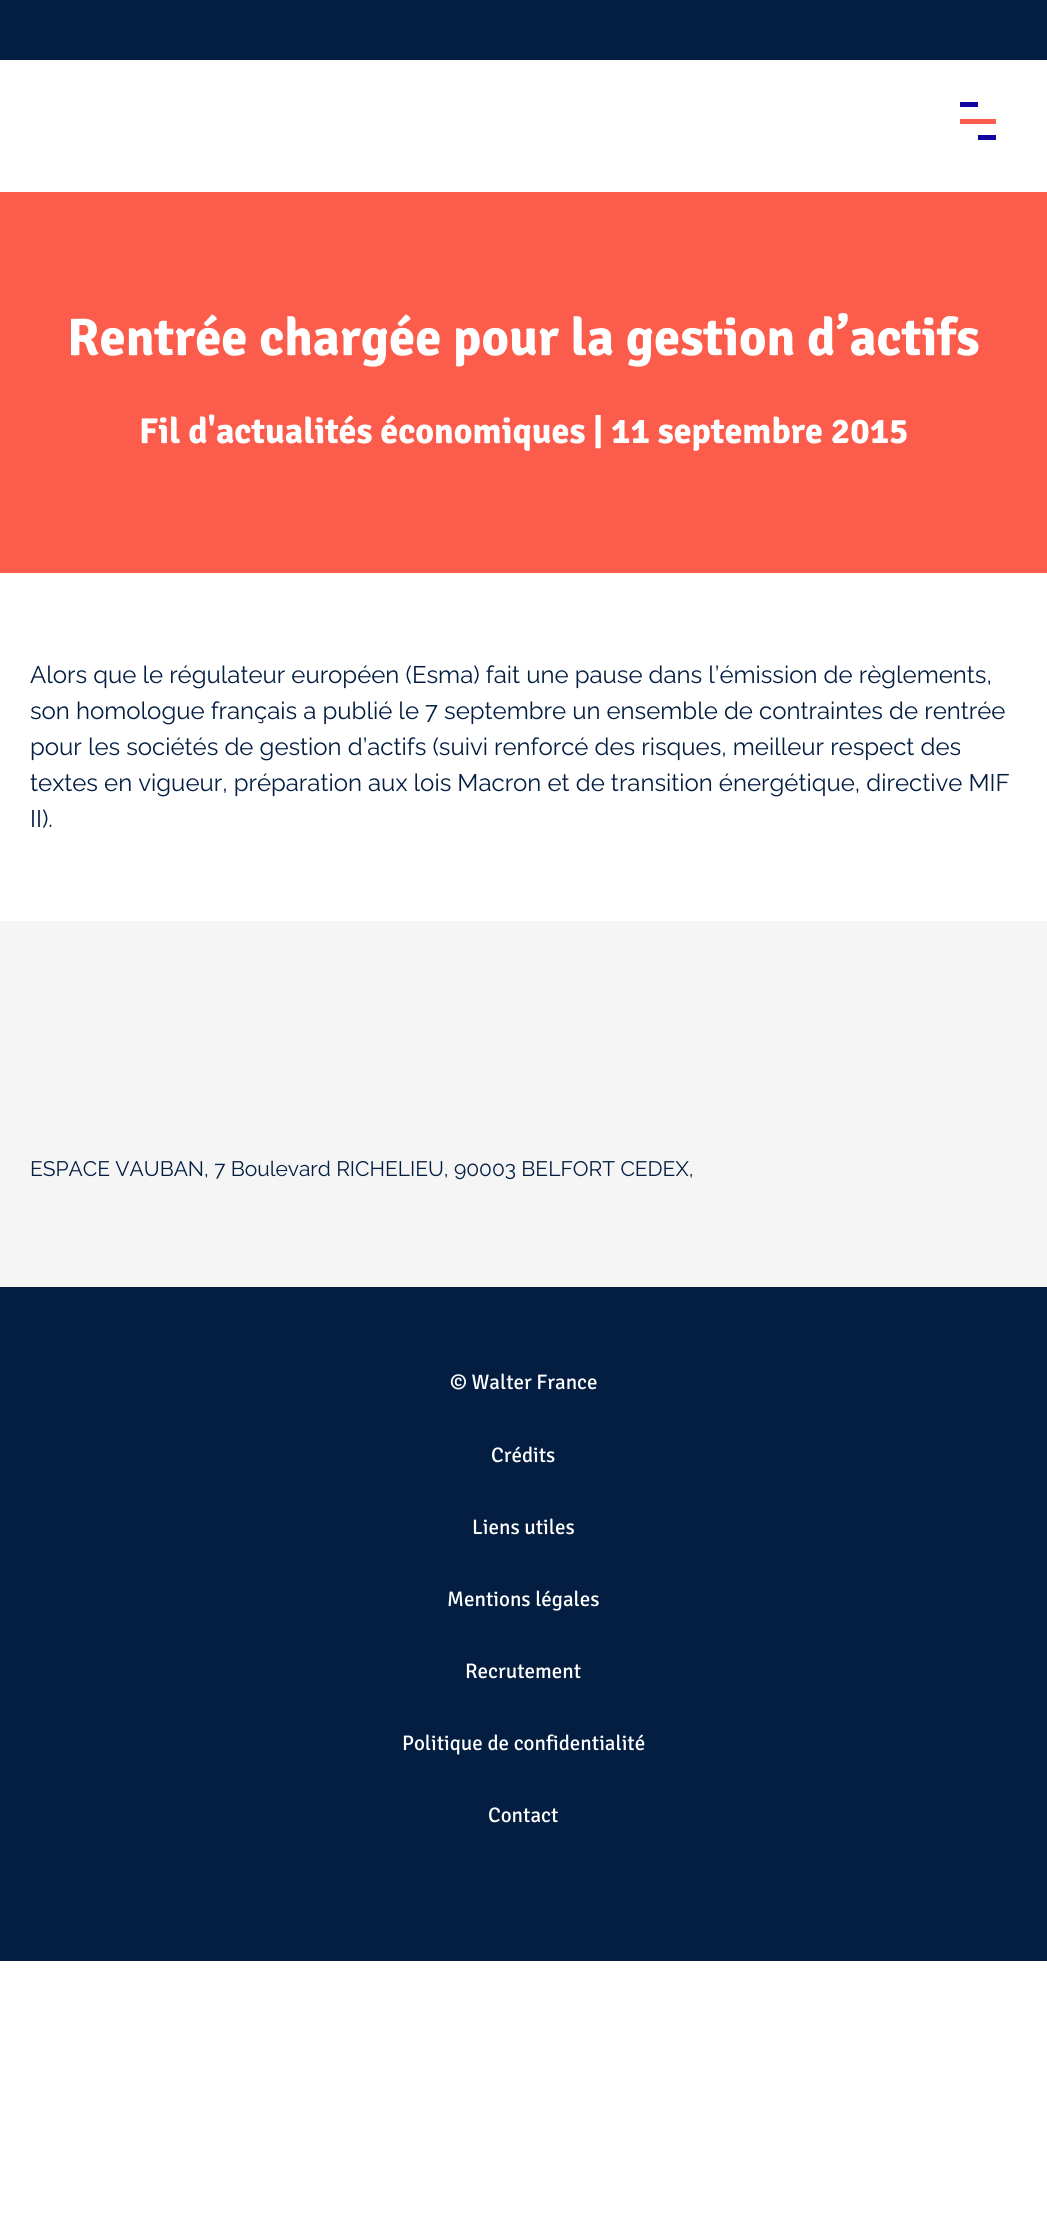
#include <cairo.h>
#include <math.h>
#include <stddef.h>

static cairo_t *c;
static void C(unsigned color){cairo_set_source_rgb(c, (color >> 16) / 255.0, (color >> 8 & 255) / 255.0, (color & 255) / 255.0);}
static void F(const char *family, double size, int italic, int bold){cairo_select_font_face(c, family, italic ? CAIRO_FONT_SLANT_ITALIC : CAIRO_FONT_SLANT_NORMAL,bold ? CAIRO_FONT_WEIGHT_BOLD : CAIRO_FONT_WEIGHT_NORMAL);cairo_set_font_size(c, size);}
static void T(double x, double y, const char *s){cairo_move_to(c, x, y);cairo_show_text(c, s);}
static void R(double x, double y, double w, double h){cairo_rectangle(c, x, y, w, h);cairo_fill(c);}
int main(void) {
cairo_surface_t *surface = cairo_image_surface_create(CAIRO_FORMAT_RGB24, 1047, 2223);
c = cairo_create(surface);
cairo_font_options_t *options = cairo_font_options_create();
cairo_font_options_set_hint_metrics(options, CAIRO_HINT_METRICS_OFF);
cairo_font_options_set_hint_style(options, CAIRO_HINT_STYLE_NONE);
cairo_set_font_options(c, options);
cairo_set_miter_limit(c, 4);
C(0xffffff);
cairo_paint(c);
C(0x041e42);
R(0,0,1047,60);
C(0x10069f);
R(960,102,18,5);
C(0xfb5c4b);
R(960,119,36,5);
C(0x10069f);
R(978,135,18,5);
C(0xfb5c4b);
R(0,192,1047,381);
F("Signika",52.75,0,1);
C(0xffffff);
T(67,355,"Rentrée chargée pour la gestion d’actifs");
F("Signika",36,0,1);
T(139,443,"Fil d'actualités économiques | 11 septembre 2015");
F("Raleway",24,0,0);
C(0x041e42);
T(30,683,"Alors que le régulateur européen (Esma) fait une pause dans l’émission de règlements,");
T(30,719,"son homologue français a publié le 7 septembre un ensemble de contraintes de rentrée");
T(30,755,"pour les sociétés de gestion d’actifs (suivi renforcé des risques, meilleur respect des");
T(30,791,"textes en vigueur, préparation aux lois Macron et de transition énergétique, directive MIF");
T(30,827,"II).");
C(0xf5f5f5);
R(0,921,1047,366);
F("Raleway",21,0,0);
C(0x041e42);
T(30,1176,"ESPACE VAUBAN, 7 Boulevard RICHELIEU, 90003 BELFORT CEDEX,");
R(0,1287,1047,674);
F("Signika",21,0,0);
C(0xffffff);
T(450,1389,"© Walter France");
T(491,1462,"Crédits");
T(472,1534,"Liens utiles");
T(447,1606,"Mentions légales");
T(465,1678,"Recrutement");
T(402,1750,"Politique de confidentialité");
T(488,1822,"Contact");
cairo_surface_write_to_png(surface, "o.png");
cairo_font_options_destroy(options);
cairo_destroy(c);
cairo_surface_destroy(surface);
return 0;
}
